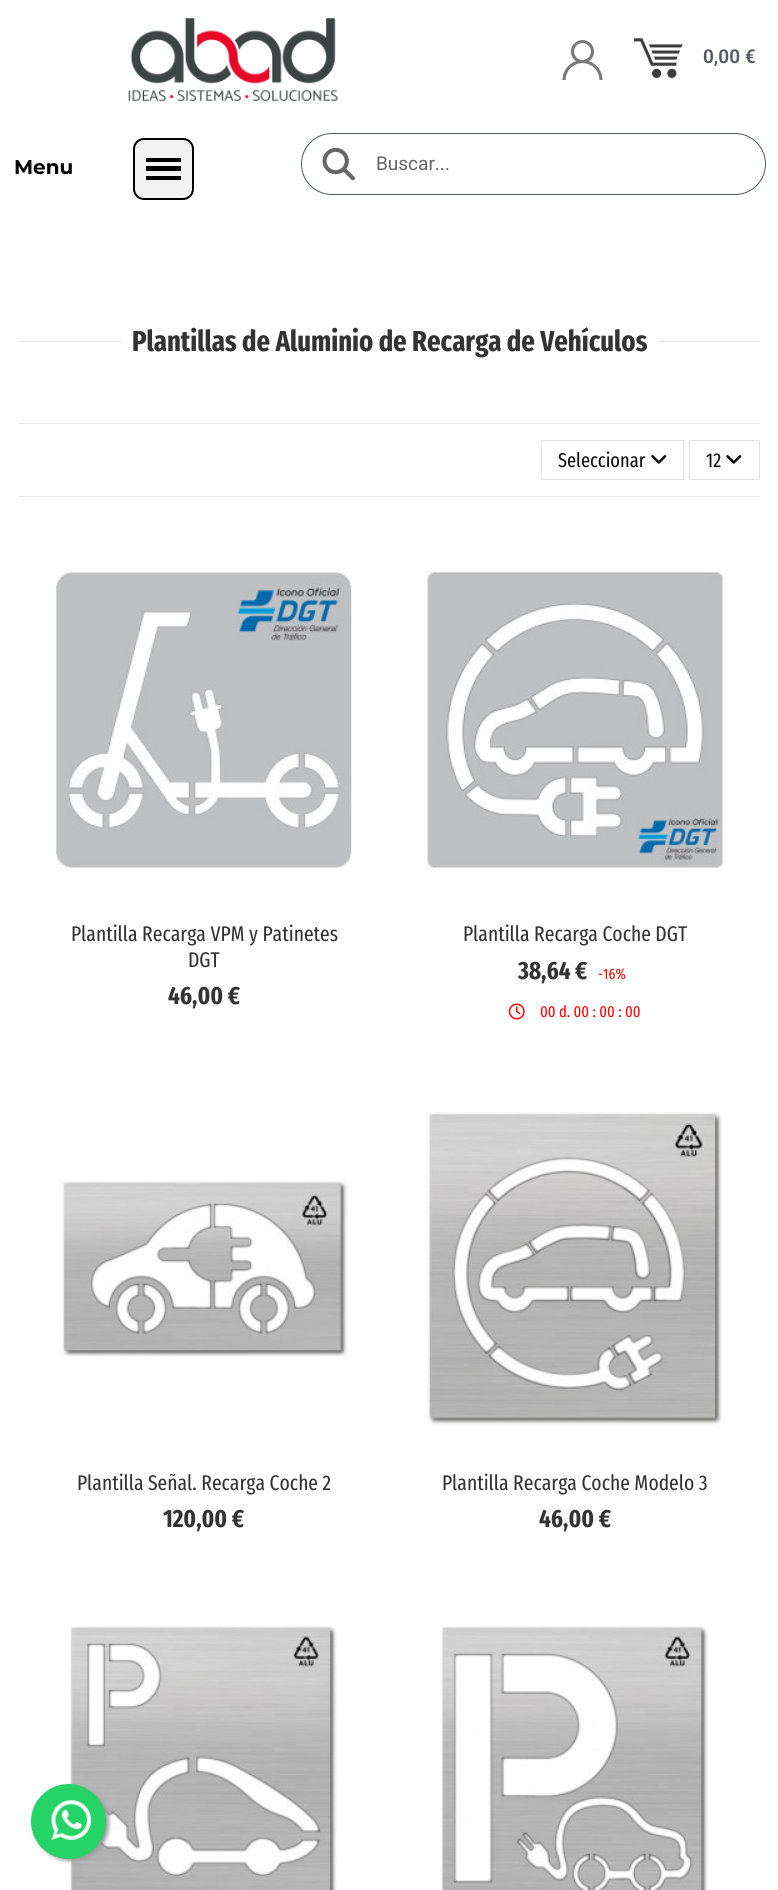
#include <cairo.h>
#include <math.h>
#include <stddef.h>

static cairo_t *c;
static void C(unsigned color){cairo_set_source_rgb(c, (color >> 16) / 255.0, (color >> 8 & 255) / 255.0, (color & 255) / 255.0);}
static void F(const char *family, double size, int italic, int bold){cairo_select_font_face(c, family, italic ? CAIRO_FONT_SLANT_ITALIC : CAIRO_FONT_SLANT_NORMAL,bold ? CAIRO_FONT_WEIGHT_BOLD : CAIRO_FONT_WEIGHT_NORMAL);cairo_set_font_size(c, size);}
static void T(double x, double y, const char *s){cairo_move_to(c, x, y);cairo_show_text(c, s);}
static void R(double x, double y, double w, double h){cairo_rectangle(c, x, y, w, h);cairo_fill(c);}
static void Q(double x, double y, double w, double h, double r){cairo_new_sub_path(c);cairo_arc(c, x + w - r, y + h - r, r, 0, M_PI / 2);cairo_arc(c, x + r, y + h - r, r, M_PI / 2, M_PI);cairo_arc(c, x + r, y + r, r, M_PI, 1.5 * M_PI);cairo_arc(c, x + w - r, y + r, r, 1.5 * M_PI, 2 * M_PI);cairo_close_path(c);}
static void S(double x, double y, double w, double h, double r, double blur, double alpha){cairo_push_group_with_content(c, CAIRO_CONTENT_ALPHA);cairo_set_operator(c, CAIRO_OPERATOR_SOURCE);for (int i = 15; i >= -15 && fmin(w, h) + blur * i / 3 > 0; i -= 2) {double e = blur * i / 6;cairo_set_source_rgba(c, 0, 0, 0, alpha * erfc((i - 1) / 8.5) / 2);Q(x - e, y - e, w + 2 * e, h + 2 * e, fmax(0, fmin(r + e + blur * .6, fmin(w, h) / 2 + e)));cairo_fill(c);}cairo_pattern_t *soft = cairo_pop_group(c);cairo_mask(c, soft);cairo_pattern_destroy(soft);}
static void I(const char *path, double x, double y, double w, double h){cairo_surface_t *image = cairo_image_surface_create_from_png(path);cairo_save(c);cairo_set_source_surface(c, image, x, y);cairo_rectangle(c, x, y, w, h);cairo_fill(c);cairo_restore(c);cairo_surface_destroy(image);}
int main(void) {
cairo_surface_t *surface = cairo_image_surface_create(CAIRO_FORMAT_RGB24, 778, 1890);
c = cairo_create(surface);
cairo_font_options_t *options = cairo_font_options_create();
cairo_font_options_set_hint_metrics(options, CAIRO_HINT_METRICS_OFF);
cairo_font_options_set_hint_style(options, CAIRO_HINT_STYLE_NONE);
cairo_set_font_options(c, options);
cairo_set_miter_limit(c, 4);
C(0xffffff);
cairo_paint(c);
I("1.png",128,18,210,84);
I("2.png",562,40,41,40);
I("3.png",634,38,49,40);
F("Roboto SemiBold",19,0,0);
C(0x54595f);
T(703,63,"0,00 €");
F("Montserrat",20,0,1);
C(0x000000);
T(14,174,"Menu");
C(0xf2f2f2);
Q(134,139,59,60,10);
cairo_fill_preserve(c);
C(0x000000);
cairo_stroke(c);
R(146,166,35,5);
R(146,158,35,4);
R(146,176,35,4);
Q(301.5,133.5,464,61,30.5);
C(0x54595f);
cairo_set_line_width(c,1);
cairo_stroke(c);
I("4.png",322,147,33,34);
F("Roboto",19,0,0);
C(0x666666);
T(376,170,"Buscar...");
C(0xe3e3e3);
R(19,341,102,1);
F("Fira Sans Extra Condensed",28.9,0,1);
C(0x333333);
T(132,351,"Plantillas de Aluminio de Recarga de Vehículos");
C(0xe3e3e3);
R(658,341,102,1);
C(0xe7e7e7);
R(19,423,741,1);
R(19,496,741,1);
cairo_rectangle(c,541.5,440.5,142,39);
C(0xe3e3e3);
cairo_stroke(c);
F("Fira Sans Extra Condensed",20,0,0);
C(0x0e0e0e);
T(558,467,"Seleccionar");
I("5.png",651,455,16,9);
cairo_rectangle(c,689.5,440.5,70,39);
C(0xe3e3e3);
cairo_stroke(c);
C(0x0e0e0e);
T(706,467,"12");
I("5.png",726,455,16,9);
I("6.png",56,572,296,296);
F("Fira Sans Extra Condensed",21.25,0,0);
C(0x333333);
T(71,941,"Plantilla Recarga VPM y Patinetes");
T(188,967,"DGT");
F("Fira Sans Extra Condensed",25,0,1);
T(168,1004,"46,00 €");
I("7.png",427,572,296,296);
F("Fira Sans Extra Condensed",21.25,0,0);
T(463,941,"Plantilla Recarga Coche DGT");
F("Fira Sans Extra Condensed",25,0,1);
T(518,979,"38,64 €");
F("Fira Sans Extra Condensed",15,0,0);
C(0xff0000);
T(598,979,"-16%");
I("8.png",508,1003,17,17);
F("Fira Sans Extra Condensed",16,0,0);
T(540,1017,"00 d. 00 : 00 : 00");
I("9.png",62,1181,286,176);
F("Fira Sans Extra Condensed",21.25,0,0);
C(0x333333);
T(77,1490,"Plantilla Señal. Recarga Coche 2");
F("Fira Sans Extra Condensed",25,0,1);
T(163,1527,"120,00 €");
I("10.png",427,1112,295,313);
F("Fira Sans Extra Condensed",21.25,0,0);
T(442,1490,"Plantilla Recarga Coche Modelo 3");
F("Fira Sans Extra Condensed",25,0,1);
T(539,1527,"46,00 €");
I("11.png",69,1625,268,265);
I("12.png",441,1626,267,264);
C(0x999999);
S(34,1786,75,75,37.5,2,1);
C(0x25d366);
cairo_arc(c,68.5,1821.5,37.5,0,2 * M_PI);
cairo_fill(c);
I("13.png",51,1800,41,40);
cairo_surface_write_to_png(surface, "o.png");
cairo_font_options_destroy(options);
cairo_destroy(c);
cairo_surface_destroy(surface);
return 0;
}
